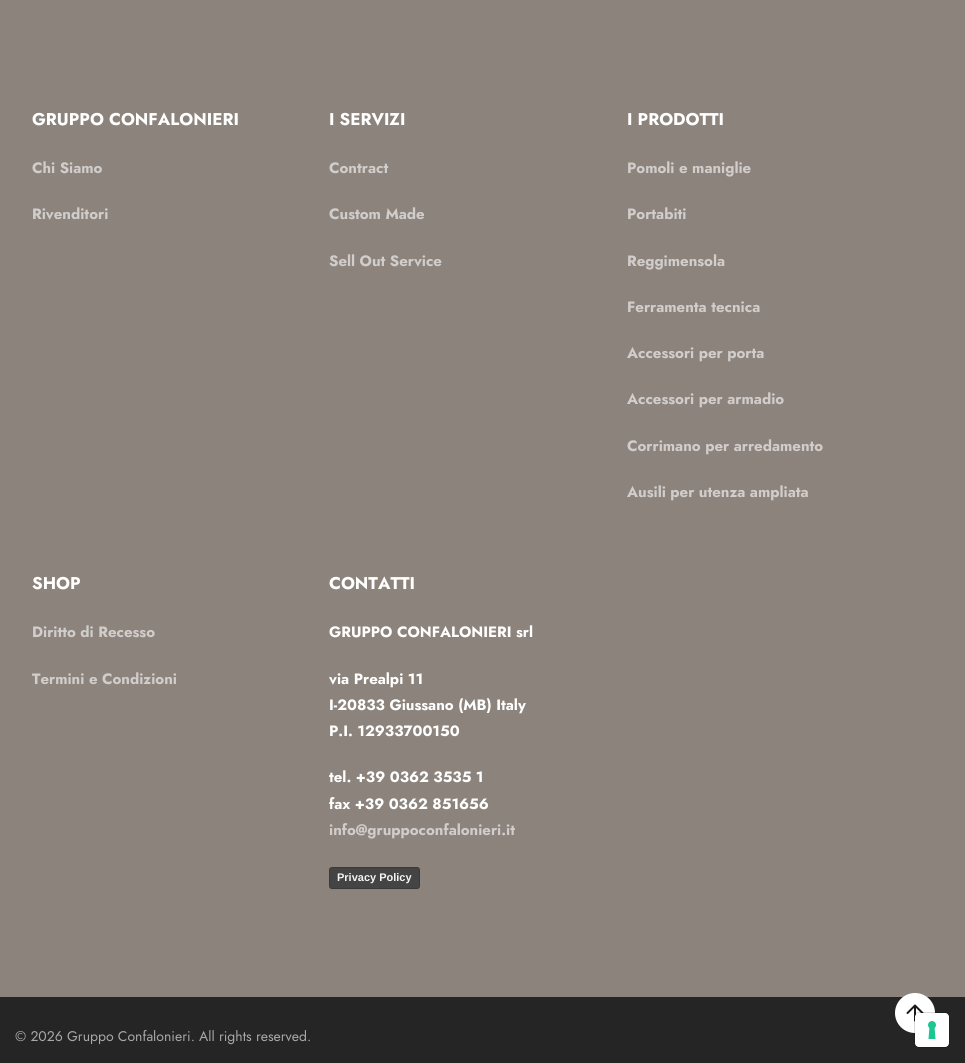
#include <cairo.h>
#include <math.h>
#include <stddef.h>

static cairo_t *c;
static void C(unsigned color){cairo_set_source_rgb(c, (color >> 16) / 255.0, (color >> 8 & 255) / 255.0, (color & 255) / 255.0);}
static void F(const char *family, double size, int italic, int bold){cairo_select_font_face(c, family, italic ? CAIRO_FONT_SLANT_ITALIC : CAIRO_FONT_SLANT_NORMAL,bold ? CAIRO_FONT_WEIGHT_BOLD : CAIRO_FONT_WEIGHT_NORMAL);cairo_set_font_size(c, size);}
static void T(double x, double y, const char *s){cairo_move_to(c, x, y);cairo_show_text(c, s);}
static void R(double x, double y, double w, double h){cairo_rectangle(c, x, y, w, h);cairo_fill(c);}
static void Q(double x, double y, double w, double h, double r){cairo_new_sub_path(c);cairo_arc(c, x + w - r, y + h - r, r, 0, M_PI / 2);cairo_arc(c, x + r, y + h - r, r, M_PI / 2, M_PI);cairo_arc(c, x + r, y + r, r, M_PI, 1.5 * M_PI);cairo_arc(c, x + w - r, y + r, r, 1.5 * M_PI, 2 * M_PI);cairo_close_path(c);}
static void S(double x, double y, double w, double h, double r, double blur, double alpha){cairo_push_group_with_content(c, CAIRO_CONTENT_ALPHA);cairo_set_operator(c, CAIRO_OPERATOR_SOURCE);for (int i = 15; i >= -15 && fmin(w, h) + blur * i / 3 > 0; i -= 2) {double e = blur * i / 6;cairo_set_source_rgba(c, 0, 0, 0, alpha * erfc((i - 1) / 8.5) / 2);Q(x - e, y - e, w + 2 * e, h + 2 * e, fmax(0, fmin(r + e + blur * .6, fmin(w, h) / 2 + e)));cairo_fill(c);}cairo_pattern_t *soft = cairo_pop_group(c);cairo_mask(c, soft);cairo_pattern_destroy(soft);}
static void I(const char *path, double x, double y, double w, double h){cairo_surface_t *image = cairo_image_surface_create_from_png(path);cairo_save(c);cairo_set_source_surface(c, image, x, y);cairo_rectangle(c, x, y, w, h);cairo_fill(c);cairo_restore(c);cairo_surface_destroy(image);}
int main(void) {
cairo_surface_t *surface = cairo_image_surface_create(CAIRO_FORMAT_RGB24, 965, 1063);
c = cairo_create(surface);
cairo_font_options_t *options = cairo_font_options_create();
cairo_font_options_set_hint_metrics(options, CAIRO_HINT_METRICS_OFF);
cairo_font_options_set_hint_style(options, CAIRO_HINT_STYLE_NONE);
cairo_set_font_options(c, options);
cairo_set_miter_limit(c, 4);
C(0x8c837c);
cairo_paint(c);
F("Jost",17,0,1);
C(0xffffff);
T(32,125,"GRUPPO CONFALONIERI");
F("Jost",15,0,1);
C(0xd1cdcb);
T(32,173,"Chi Siamo");
T(32,219,"Rivenditori");
F("Jost",17,0,1);
C(0xffffff);
T(329,125,"I SERVIZI");
F("Jost",15,0,1);
C(0xd1cdcb);
T(329,173,"Contract");
T(329,219,"Custom Made");
T(329,266,"Sell Out Service");
F("Jost",17,0,1);
C(0xffffff);
T(627,125,"I PRODOTTI");
F("Jost",15,0,1);
C(0xd1cdcb);
T(627,173,"Pomoli e maniglie");
T(627,219,"Portabiti");
T(627,266,"Reggimensola");
T(627,312,"Ferramenta tecnica");
T(627,358,"Accessori per porta");
T(627,404,"Accessori per armadio");
T(627,451,"Corrimano per arredamento");
T(627,497,"Ausili per utenza ampliata");
F("Jost",17,0,1);
C(0xffffff);
T(32,589,"SHOP");
F("Jost",15,0,1);
C(0xd1cdcb);
T(32,637,"Diritto di Recesso");
T(32,684,"Termini e Condizioni");
F("Jost",17,0,1);
C(0xffffff);
T(329,589,"CONTATTI");
F("Jost",15,0,1);
T(329,637,"GRUPPO CONFALONIERI srl");
T(329,684,"via Prealpi 11");
T(329,710,"I-20833 Giussano (MB) Italy");
T(329,736,"P.I. 12933700150");
T(329,782,"tel. +39 0362 3535 1");
T(329,809,"fax +39 0362 851656");
C(0xd1cdcb);
T(329,835,"info@gruppoconfalonieri.it");
C(0x000000);
S(330,869,89,20,2,.5,.15);
C(0x444444);
Q(329,867,91,22,3);
cairo_fill(c);
Q(329.5,867.5,90,21,2.5);
cairo_set_source_rgba(c,0,0,0,0.15);
cairo_set_line_width(c,1);
cairo_stroke(c);
F("Liberation Sans",11,0,1);
C(0xf4f4f4);
T(337,881,"Privacy Policy");
C(0x252525);
R(0,997,965,66);
F("Jost",14,0,0);
C(0xa8a8a8);
T(15,1041,"© 2026 Gruppo Confalonieri. All rights reserved.");
C(0xffffff);
cairo_new_path(c);
cairo_arc(c,915,1013,20,0,2 * M_PI);
cairo_fill(c);
cairo_new_path(c);
cairo_move_to(c,915,1020.5);
cairo_line_to(c,915,1005.5);
cairo_move_to(c,907.5,1013);
cairo_line_to(c,915,1005.5);
cairo_line_to(c,922.5,1013);
C(0x181818);
cairo_set_line_width(c,2);
cairo_set_line_cap(c,CAIRO_LINE_CAP_ROUND);
cairo_set_line_join(c,CAIRO_LINE_JOIN_ROUND);
cairo_stroke(c);
Q(914.5,1012.5,35,35,4.5);
cairo_set_source_rgba(c,0,0,0,0.15);
cairo_set_line_width(c,1);
cairo_set_line_cap(c,CAIRO_LINE_CAP_BUTT);
cairo_set_line_join(c,CAIRO_LINE_JOIN_MITER);
cairo_stroke(c);
C(0xffffff);
Q(915,1013,34,34,4);
cairo_fill(c);
I("1.png",928,1021,8,18);
cairo_surface_write_to_png(surface, "o.png");
cairo_font_options_destroy(options);
cairo_destroy(c);
cairo_surface_destroy(surface);
return 0;
}
